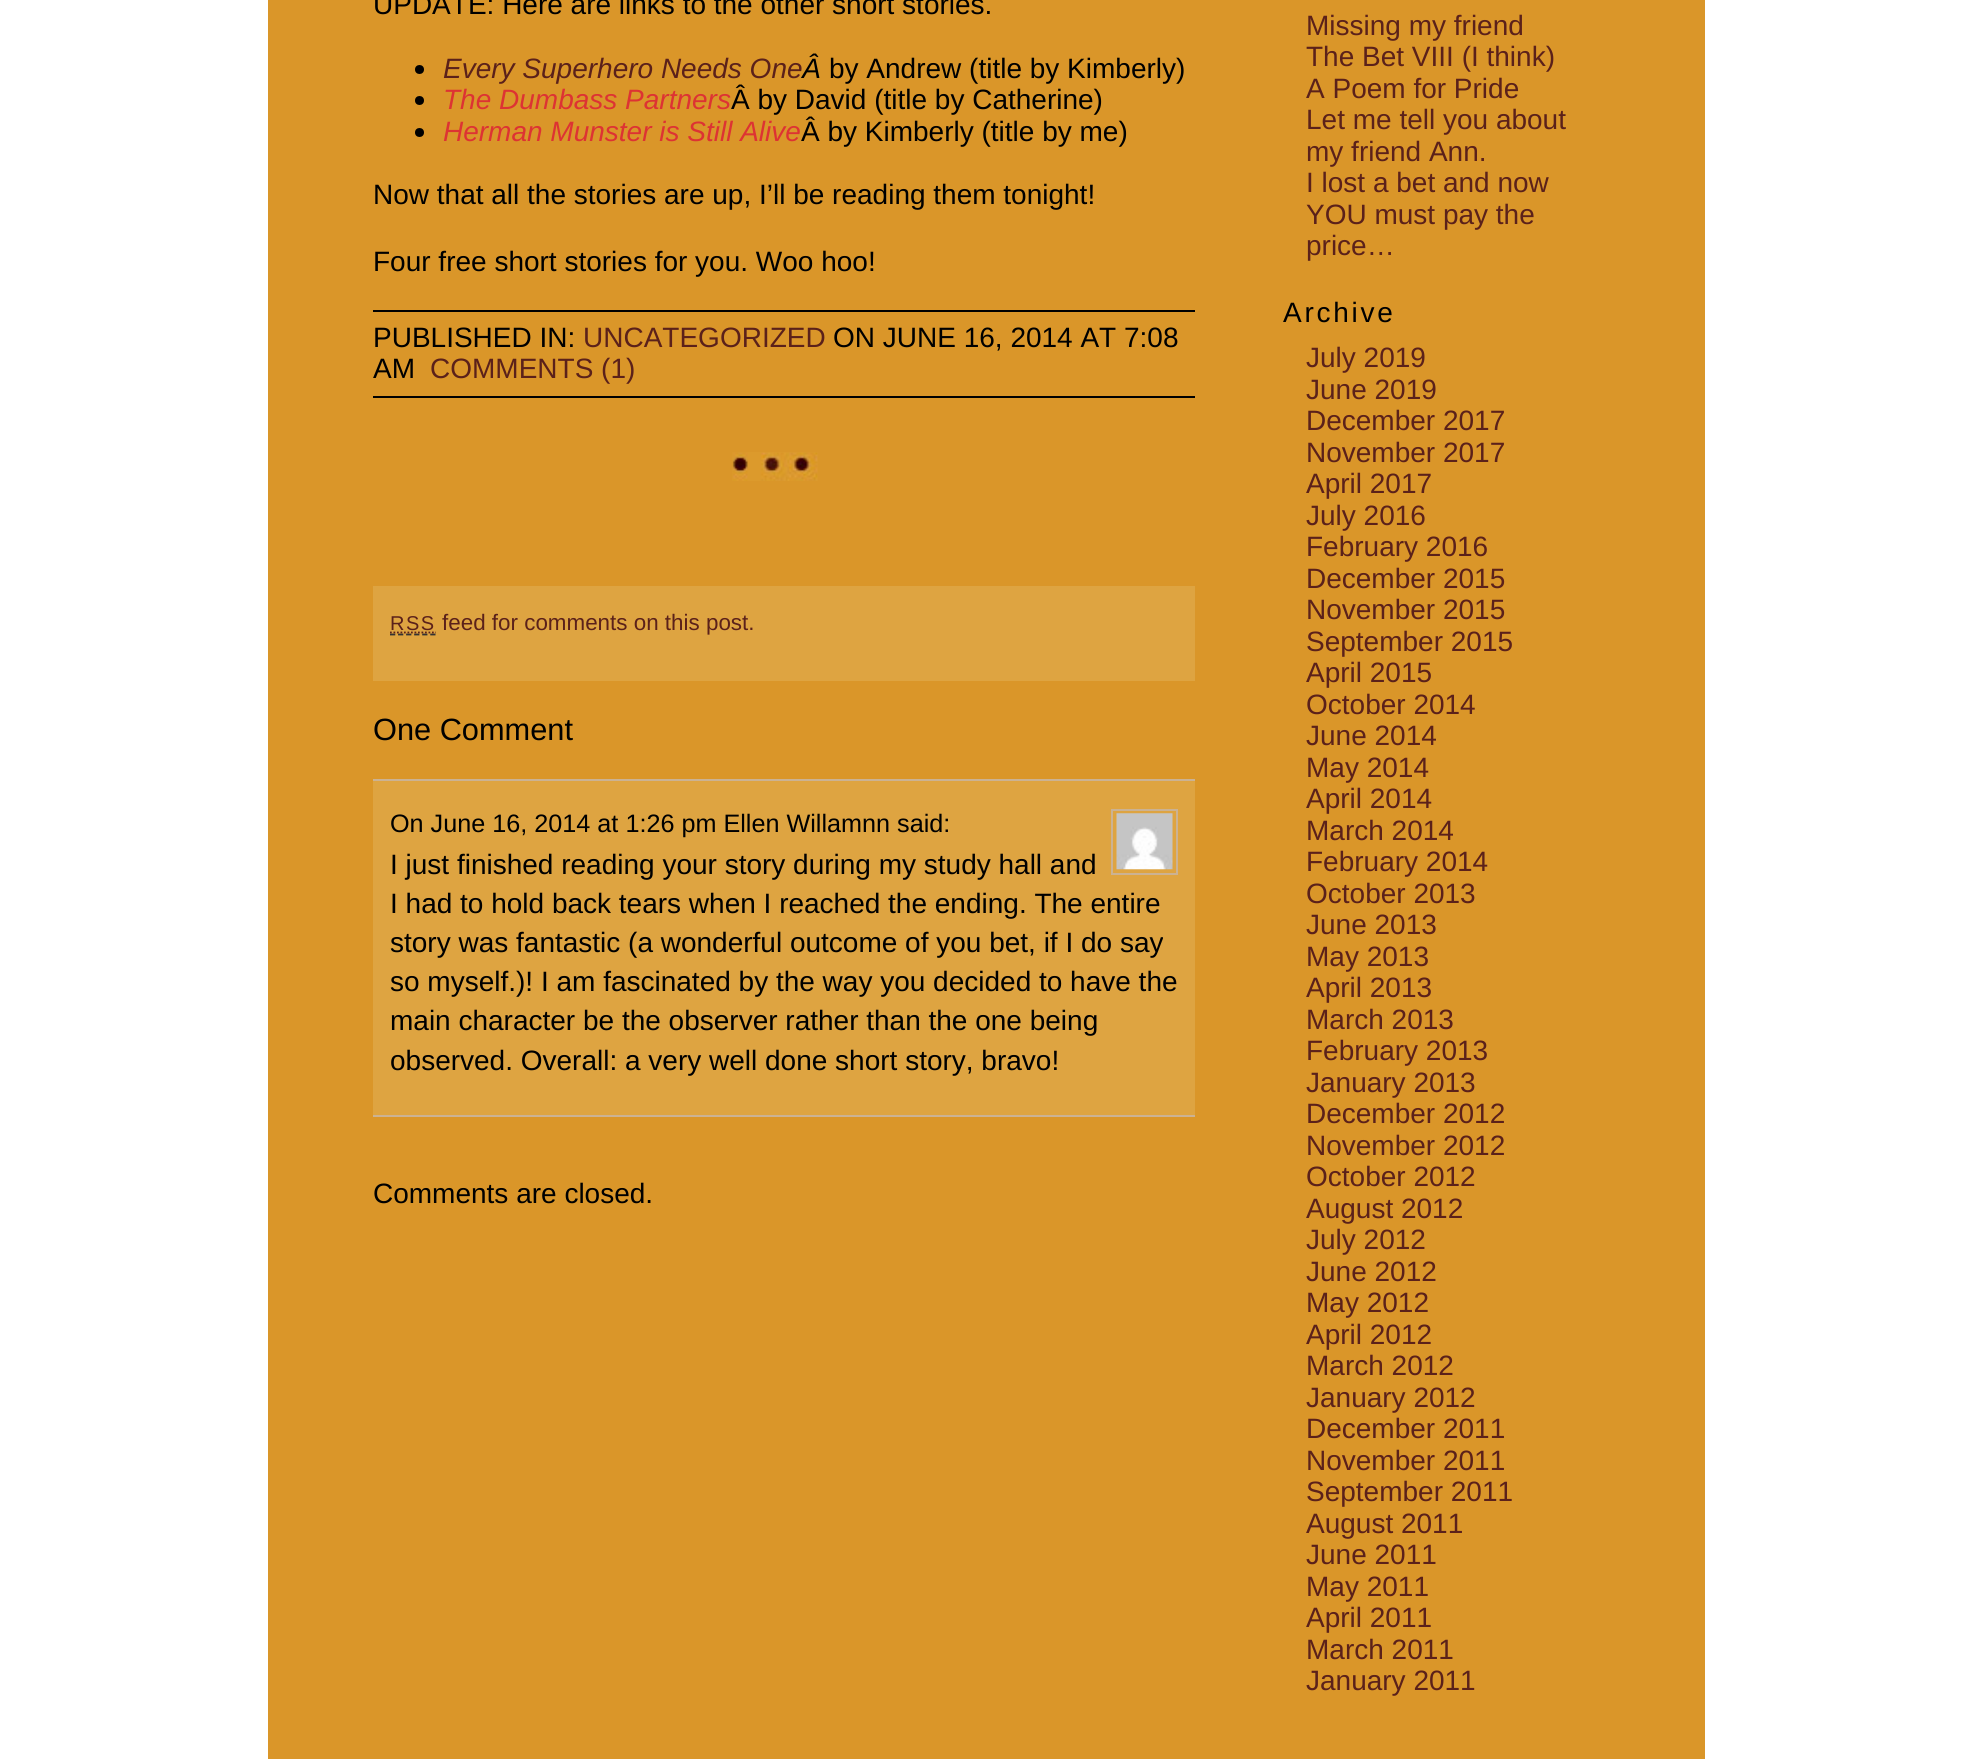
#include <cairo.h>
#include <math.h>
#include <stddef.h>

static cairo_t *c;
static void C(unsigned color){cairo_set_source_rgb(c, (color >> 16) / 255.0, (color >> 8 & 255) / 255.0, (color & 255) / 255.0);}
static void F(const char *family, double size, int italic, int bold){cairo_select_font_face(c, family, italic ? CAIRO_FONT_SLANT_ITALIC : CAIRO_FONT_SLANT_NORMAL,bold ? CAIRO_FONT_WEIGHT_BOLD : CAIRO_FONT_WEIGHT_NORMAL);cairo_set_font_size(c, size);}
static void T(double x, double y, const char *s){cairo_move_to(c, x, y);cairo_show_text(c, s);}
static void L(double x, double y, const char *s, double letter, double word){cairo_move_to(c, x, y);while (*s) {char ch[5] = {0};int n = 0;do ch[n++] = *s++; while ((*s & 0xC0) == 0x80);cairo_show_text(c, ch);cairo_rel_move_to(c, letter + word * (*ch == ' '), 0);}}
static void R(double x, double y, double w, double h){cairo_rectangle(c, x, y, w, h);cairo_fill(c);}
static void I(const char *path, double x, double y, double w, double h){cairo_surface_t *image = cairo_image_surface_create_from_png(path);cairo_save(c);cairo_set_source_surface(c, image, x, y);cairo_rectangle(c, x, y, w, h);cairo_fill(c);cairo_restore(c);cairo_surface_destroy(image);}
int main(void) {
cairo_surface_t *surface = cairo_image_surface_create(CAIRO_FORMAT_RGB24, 1972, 1759);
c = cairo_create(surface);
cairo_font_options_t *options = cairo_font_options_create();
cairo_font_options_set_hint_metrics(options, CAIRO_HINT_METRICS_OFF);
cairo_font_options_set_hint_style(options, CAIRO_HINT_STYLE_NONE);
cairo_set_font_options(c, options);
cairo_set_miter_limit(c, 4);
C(0xffffff);
cairo_paint(c);
C(0xda9629);
R(268,0,1437,1759);
F("Liberation Sans",28,0,0);
C(0x000000);
T(373,14,"UPDATE: Here are links to the other short stories.");
cairo_new_path(c);
cairo_arc(c,419.5,69.5,4.5,0,2 * M_PI);
cairo_fill(c);
F("Liberation Sans",28,1,0);
C(0x5b211a);
T(443,78,"Every Superhero Needs One");
C(0x000000);
T(802,78,"Â");
F("Liberation Sans",28,0,0);
T(829,78,"by Andrew (title by Kimberly)");
cairo_new_path(c);
cairo_arc(c,419.5,100.5,4.5,0,2 * M_PI);
cairo_fill(c);
F("Liberation Sans",28,1,0);
C(0xdd3333);
T(443,109,"The Dumbass Partners");
F("Liberation Sans",28,0,0);
C(0x000000);
T(731,109,"Â by David (title by Catherine)");
cairo_new_path(c);
cairo_arc(c,419.5,132.5,4.5,0,2 * M_PI);
cairo_fill(c);
F("Liberation Sans",28,1,0);
C(0xdd3333);
T(443,141,"Herman Munster is Still Alive");
F("Liberation Sans",28,0,0);
C(0x000000);
T(801,141,"Â by Kimberly (title by me)");
T(373,204,"Now that all the stories are up, I’ll be reading them tonight!");
T(373,271,"Four free short stories for you. Woo hoo!");
R(373,310,822,2);
R(373,396,822,2);
T(373,347,"PUBLISHED IN:");
C(0x5b211a);
T(583,347,"UNCATEGORIZED");
C(0x000000);
T(833,347,"ON JUNE 16, 2014 AT 7:08");
T(373,378,"AM");
C(0x5b211a);
T(430,378,"COMMENTS (1)");
I("1.png",732,452,86,29);
C(0xdea441);
R(373,586,822,95);
F("Liberation Sans",20,0,0);
C(0x5b211a);
L(390,630,"RSS",1.5,0);
cairo_new_path(c);
cairo_move_to(c,390,634.5);
cairo_line_to(c,436,634.5);
C(0x333333);
cairo_set_line_width(c,1.8);
cairo_set_dash(c,(double[]){5.25,2.8},2,0);
cairo_stroke(c);
cairo_new_path(c);
cairo_move_to(c,390,632.5);
cairo_line_to(c,436,632.5);
C(0x5b211a);
cairo_set_dash(c,(double[]){1.75,1.75},2,0);
cairo_stroke(c);
F("Liberation Sans",22.4,0,0);
T(442,630,"feed for comments on this post.");
F("Liberation Sans",30.75,0,0);
C(0x000000);
T(373,740,"One Comment");
C(0xdea441);
R(373,781,822,334);
C(0xcbb293);
R(373,779,822,2);
R(373,1115,822,2);
F("Liberation Sans",25.2,0,0);
C(0x000000);
T(390,832,"On June 16, 2014 at 1:26 pm Ellen Willamnn said:");
cairo_rectangle(c,1112,810,65,64);
C(0xcbb293);
cairo_set_line_width(c,2);
cairo_set_dash(c,NULL,0,0);
cairo_stroke(c);
I("2.png",1116,813,57,57);
F("Liberation Sans",28,0,0);
C(0x000000);
T(390,874,"I just finished reading your story during my study hall and");
T(390,913,"I had to hold back tears when I reached the ending. The entire");
T(390,952,"story was fantastic (a wonderful outcome of you bet, if I do say");
T(390,991,"so myself.)! I am fascinated by the way you decided to have the");
T(390,1030,"main character be the observer rather than the one being");
T(390,1070,"observed. Overall: a very well done short story, bravo!");
T(373,1203,"Comments are closed.");
C(0x5b211a);
T(1306,35,"Missing my friend");
T(1306,66,"The Bet VIII (I think)");
T(1306,98,"A Poem for Pride");
T(1306,129,"Let me tell you about");
T(1306,161,"my friend Ann.");
T(1306,192,"I lost a bet and now");
T(1306,224,"YOU must pay the");
T(1306,255,"price…");
C(0x000000);
L(1283,322,"Archive",2.75,0);
C(0x5b211a);
T(1306,367,"July 2019");
T(1306,399,"June 2019");
T(1306,430,"December 2017");
T(1306,462,"November 2017");
T(1306,493,"April 2017");
T(1306,525,"July 2016");
T(1306,556,"February 2016");
T(1306,588,"December 2015");
T(1306,619,"November 2015");
T(1306,651,"September 2015");
T(1306,682,"April 2015");
T(1306,714,"October 2014");
T(1306,745,"June 2014");
T(1306,777,"May 2014");
T(1306,808,"April 2014");
T(1306,840,"March 2014");
T(1306,871,"February 2014");
T(1306,903,"October 2013");
T(1306,934,"June 2013");
T(1306,966,"May 2013");
T(1306,997,"April 2013");
T(1306,1029,"March 2013");
T(1306,1060,"February 2013");
T(1306,1092,"January 2013");
T(1306,1123,"December 2012");
T(1306,1155,"November 2012");
T(1306,1186,"October 2012");
T(1306,1218,"August 2012");
T(1306,1249,"July 2012");
T(1306,1281,"June 2012");
T(1306,1312,"May 2012");
T(1306,1344,"April 2012");
T(1306,1375,"March 2012");
T(1306,1407,"January 2012");
T(1306,1438,"December 2011");
T(1306,1470,"November 2011");
T(1306,1501,"September 2011");
T(1306,1533,"August 2011");
T(1306,1564,"June 2011");
T(1306,1596,"May 2011");
T(1306,1627,"April 2011");
T(1306,1659,"March 2011");
T(1306,1690,"January 2011");
cairo_surface_write_to_png(surface, "o.png");
cairo_font_options_destroy(options);
cairo_destroy(c);
cairo_surface_destroy(surface);
return 0;
}
